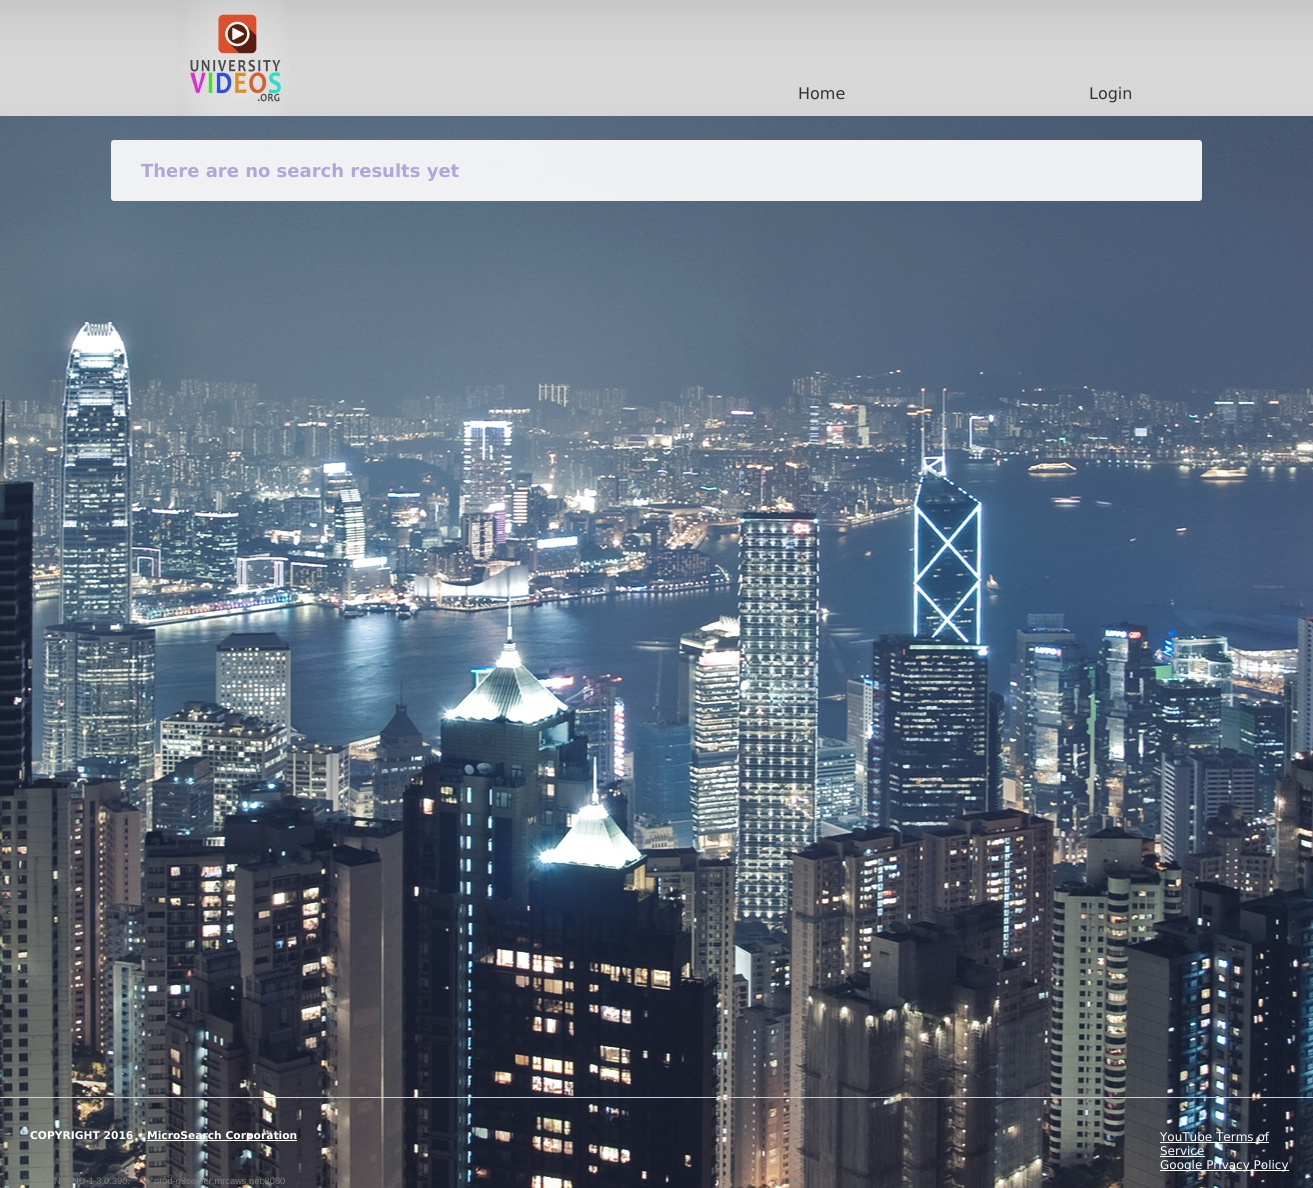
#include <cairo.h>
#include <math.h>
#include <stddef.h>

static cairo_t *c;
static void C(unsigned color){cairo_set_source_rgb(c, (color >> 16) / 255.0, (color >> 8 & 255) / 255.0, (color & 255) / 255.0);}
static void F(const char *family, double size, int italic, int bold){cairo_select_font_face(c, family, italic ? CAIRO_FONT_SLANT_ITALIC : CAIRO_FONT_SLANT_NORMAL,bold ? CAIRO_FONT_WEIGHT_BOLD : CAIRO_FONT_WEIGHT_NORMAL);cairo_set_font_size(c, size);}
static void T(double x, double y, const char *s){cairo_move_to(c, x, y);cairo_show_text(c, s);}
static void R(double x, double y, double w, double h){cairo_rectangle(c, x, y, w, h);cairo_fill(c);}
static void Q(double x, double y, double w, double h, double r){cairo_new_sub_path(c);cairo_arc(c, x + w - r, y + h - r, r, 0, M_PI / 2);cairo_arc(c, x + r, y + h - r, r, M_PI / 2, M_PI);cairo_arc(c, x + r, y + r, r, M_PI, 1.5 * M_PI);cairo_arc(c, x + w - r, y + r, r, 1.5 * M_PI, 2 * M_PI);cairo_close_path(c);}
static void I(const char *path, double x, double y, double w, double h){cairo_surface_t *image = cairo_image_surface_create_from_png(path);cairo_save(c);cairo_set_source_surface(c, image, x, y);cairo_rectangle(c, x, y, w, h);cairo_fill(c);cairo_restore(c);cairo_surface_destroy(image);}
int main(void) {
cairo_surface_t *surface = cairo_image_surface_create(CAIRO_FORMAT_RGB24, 1313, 1188);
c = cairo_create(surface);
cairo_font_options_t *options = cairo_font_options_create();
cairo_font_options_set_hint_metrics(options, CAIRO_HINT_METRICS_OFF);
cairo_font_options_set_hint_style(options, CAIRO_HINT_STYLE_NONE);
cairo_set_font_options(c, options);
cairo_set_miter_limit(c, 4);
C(0xffffff);
cairo_paint(c);
I("1.png",0,116,1313,1072);
I("2.png",0,0,1313,116);
I("3.png",177,0,113,116);
F("DejaVu Sans",16,0,0);
C(0x333333);
T(798,99,"Home");
T(1089,99,"Login");
cairo_set_source_rgba(c,1,1,1,0.9);
Q(111,140,1091,61,3);
cairo_fill(c);
F("DejaVu Sans",18,0,1);
C(0xb2a6d9);
T(141,177,"There are no search results yet");
C(0xcfcfcf);
R(0,1097,1313,1);
F("DejaVu Sans",10.7,0,1);
C(0xffffff);
T(30,1139,"COPYRIGHT 2016 •");
R(147,1140,150,1);
T(147,1139,"MicroSearch Corporation");
F("DejaVu Sans",12,0,0);
T(1160,1141,"YouTube Terms of");
R(1160,1142,109,1);
T(1160,1155,"Service");
R(1160,1156,45,1);
R(1160,1170,129,1);
T(1160,1169,"Google Privacy Policy");
F("Liberation Sans",9.3,0,0);
C(0x808080);
T(54,1184,"N");
T(72,1184,"ND-1 3.0.390.");
F("DejaVu Sans",9.3,0,0);
T(144,1184,"➤");
F("Liberation Sans",9.3,0,0);
T(154,1184,"prod-g3server.mrcaws.net:8080");
cairo_surface_write_to_png(surface, "o.png");
cairo_font_options_destroy(options);
cairo_destroy(c);
cairo_surface_destroy(surface);
return 0;
}
